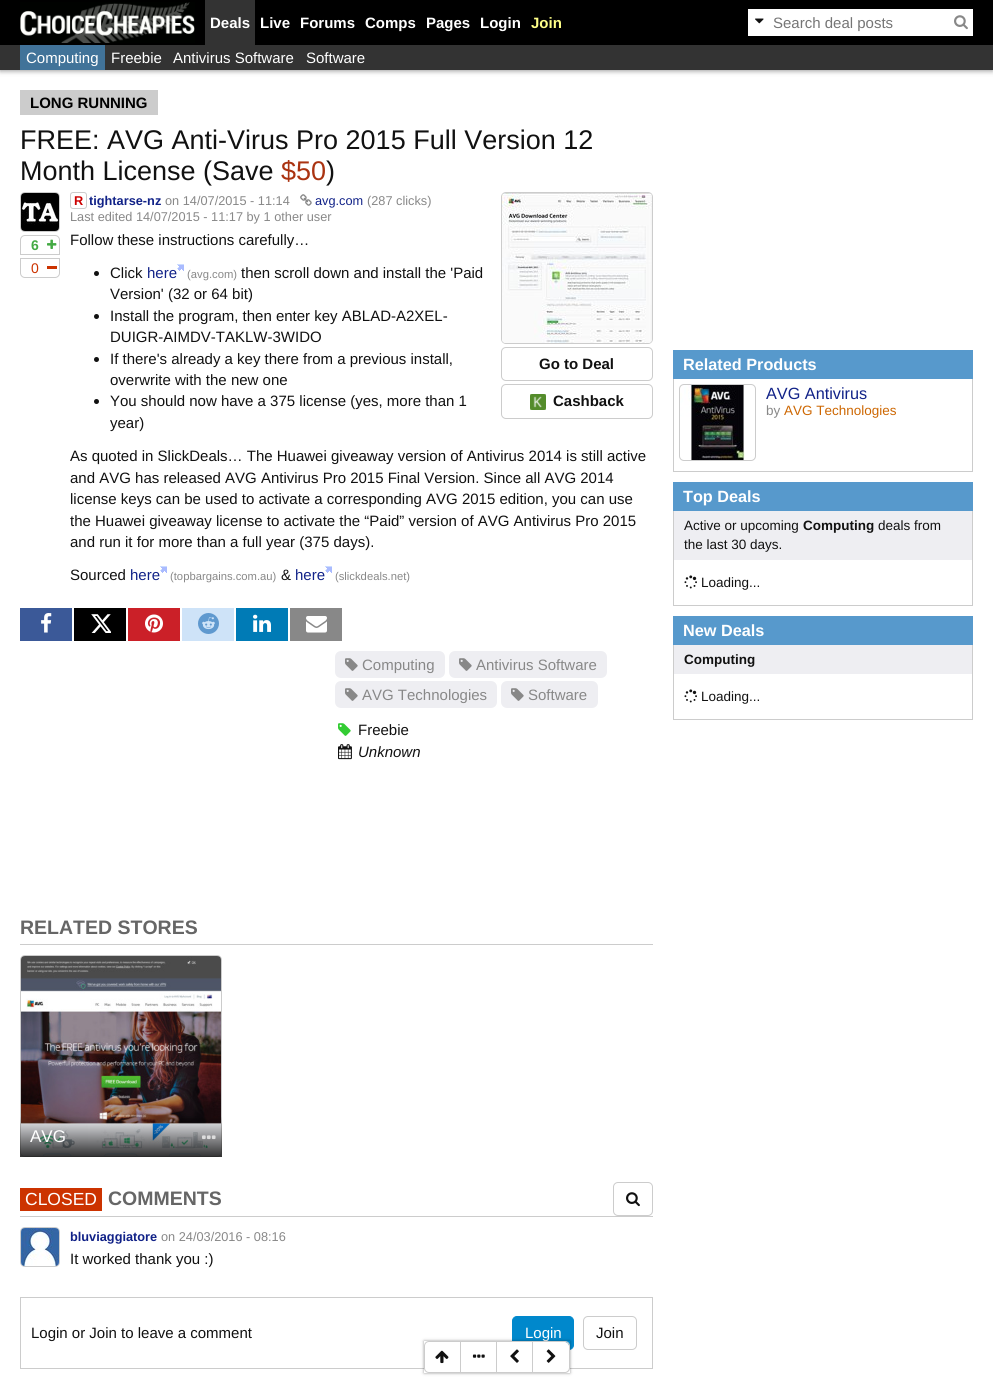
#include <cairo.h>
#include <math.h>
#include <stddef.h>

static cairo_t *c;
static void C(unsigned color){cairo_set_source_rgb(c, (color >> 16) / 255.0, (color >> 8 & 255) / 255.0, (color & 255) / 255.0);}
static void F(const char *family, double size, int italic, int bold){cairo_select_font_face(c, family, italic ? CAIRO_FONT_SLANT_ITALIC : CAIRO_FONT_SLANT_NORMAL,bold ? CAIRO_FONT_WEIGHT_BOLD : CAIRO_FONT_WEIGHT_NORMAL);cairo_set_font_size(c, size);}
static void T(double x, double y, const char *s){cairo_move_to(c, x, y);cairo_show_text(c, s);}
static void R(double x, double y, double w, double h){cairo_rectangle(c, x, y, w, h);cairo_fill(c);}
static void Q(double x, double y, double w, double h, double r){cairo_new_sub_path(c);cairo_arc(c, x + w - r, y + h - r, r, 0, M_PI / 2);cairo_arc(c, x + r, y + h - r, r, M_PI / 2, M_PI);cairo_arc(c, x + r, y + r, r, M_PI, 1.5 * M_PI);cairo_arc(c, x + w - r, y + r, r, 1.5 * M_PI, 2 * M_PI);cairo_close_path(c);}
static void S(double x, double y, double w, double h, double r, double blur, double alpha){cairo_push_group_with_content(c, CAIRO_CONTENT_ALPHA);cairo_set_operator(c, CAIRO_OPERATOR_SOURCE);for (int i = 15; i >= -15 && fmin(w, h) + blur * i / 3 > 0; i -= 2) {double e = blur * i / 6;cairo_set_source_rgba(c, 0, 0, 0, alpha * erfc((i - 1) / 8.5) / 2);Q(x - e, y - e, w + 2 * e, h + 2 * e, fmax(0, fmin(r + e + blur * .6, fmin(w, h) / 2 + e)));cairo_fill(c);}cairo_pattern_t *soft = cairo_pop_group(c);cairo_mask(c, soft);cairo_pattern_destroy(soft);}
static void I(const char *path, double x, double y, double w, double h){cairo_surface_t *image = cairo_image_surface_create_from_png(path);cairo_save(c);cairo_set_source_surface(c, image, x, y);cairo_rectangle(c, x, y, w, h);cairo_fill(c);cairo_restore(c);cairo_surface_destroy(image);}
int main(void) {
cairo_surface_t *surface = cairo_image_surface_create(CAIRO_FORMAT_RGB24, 993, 1378);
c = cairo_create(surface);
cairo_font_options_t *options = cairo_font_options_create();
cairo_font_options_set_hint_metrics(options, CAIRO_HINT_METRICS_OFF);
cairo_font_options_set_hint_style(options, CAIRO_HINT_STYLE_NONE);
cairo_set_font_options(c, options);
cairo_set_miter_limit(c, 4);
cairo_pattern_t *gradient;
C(0xffffff);
cairo_paint(c);
C(0x000000);
R(0,0,993,45);
C(0x000000);
S(0,46,993,25,0,2.5,.4);
I("1.png",20,2,175,41);
C(0x333333);
R(205,0,50,45);
F("Liberation Sans",15,0,1);
C(0xffffff);
T(210,28,"Deals");
T(260,28,"Live");
T(300,28,"Forums");
T(365,28,"Comps");
T(426,28,"Pages");
T(480,28,"Login");
C(0xffff88);
T(531,28,"Join");
C(0xffffff);
R(748,9,225,27);
I("2.png",755,18,9,6);
F("Liberation Sans",15,0,0);
C(0x757575);
T(773,28,"Search deal posts");
I("3.png",954,15,14,15);
C(0x333333);
R(0,45,993,25);
C(0x417399);
R(20,45,85,25);
C(0xffffff);
T(26,63,"Computing");
T(111,63,"Freebie");
T(173,63,"Antivirus Software");
T(306,63,"Software");
C(0xcccccc);
R(20,90,138,25);
F("Liberation Sans",15,0,1);
C(0x000000);
T(30,108,"LONG RUNNING");
F("Liberation Sans",27,0,0);
C(0x111111);
T(20,149,"FREE: AVG Anti-Virus Pro 2015 Full Version 12");
T(20,180,"Month License (Save");
C(0xaa3311);
T(281,180,"$50");
C(0x111111);
T(326,180,")");
Q(20.5,192.5,39,39,4.5);
C(0xcccccc);
cairo_set_line_width(c,1);
cairo_stroke(c);
I("4.png",21,193,38,38);
cairo_new_path(c);
cairo_move_to(c,25,235.5);
cairo_line_to(c,55,235.5);
cairo_curve_to(c,57.5,235.5,59.5,237.5,59.5,240);
cairo_line_to(c,59.5,254.5);
cairo_line_to(c,20.5,254.5);
cairo_line_to(c,20.5,240);
cairo_curve_to(c,20.5,237.5,22.5,235.5,25,235.5);
cairo_close_path(c);
cairo_stroke(c);
F("Liberation Sans",14,0,1);
C(0x44aa44);
T(31,250,"6");
I("5.png",47,239,10,10);
cairo_new_path(c);
cairo_move_to(c,20.5,258.5);
cairo_line_to(c,59.5,258.5);
cairo_line_to(c,59.5,273);
cairo_curve_to(c,59.5,275.5,57.5,277.5,55,277.5);
cairo_line_to(c,25,277.5);
cairo_curve_to(c,22.5,277.5,20.5,275.5,20.5,273);
cairo_close_path(c);
C(0xcccccc);
cairo_stroke(c);
F("Liberation Sans",14,0,0);
C(0xcc3300);
T(31,273,"0");
R(47,266,10,3);
Q(70.5,192.5,16,16,2.5);
C(0xcccccc);
cairo_stroke(c);
F("Liberation Sans",12.75,0,1);
C(0xcc0000);
T(74,205,"R");
C(0x112288);
T(89,205,"tightarse-nz");
F("Liberation Sans",12.75,0,0);
C(0x888888);
T(165,205,"on 14/07/2015 - 11:14");
I("6.png",300,194,12,12);
C(0x112288);
T(315,205,"avg.com");
C(0x888888);
T(367,205,"(287 clicks)");
T(70,221,"Last edited 14/07/2015 - 11:17 by 1 other user");
F("Liberation Sans",15,0,0);
C(0x111111);
T(70,245,"Follow these instructions carefully…");
cairo_new_path(c);
cairo_arc(c,96.5,273.5,2.5,0,2 * M_PI);
cairo_fill(c);
T(110,278,"Click");
C(0x112288);
T(147,278,"here");
I("7.png",177,264,7,7);
F("Liberation Sans",11.25,0,0);
C(0x888888);
T(187,278,"(avg.com)");
F("Liberation Sans",15,0,0);
C(0x111111);
T(241,278,"then scroll down and install the 'Paid");
T(110,299,"Version' (32 or 64 bit)");
cairo_new_path(c);
cairo_arc(c,96.5,316.5,2.5,0,2 * M_PI);
cairo_fill(c);
T(110,321,"Install the program, then enter key ABLAD-A2XEL-");
T(110,342,"DUIGR-AIMDV-TAKLW-3WIDO");
cairo_new_path(c);
cairo_arc(c,96.5,359.5,2.5,0,2 * M_PI);
cairo_fill(c);
T(110,364,"If there's already a key there from a previous install,");
T(110,385,"overwrite with the new one");
cairo_new_path(c);
cairo_arc(c,96.5,401.5,2.5,0,2 * M_PI);
cairo_fill(c);
T(110,406,"You should now have a 375 license (yes, more than 1");
T(110,428,"year)");
T(70,461,"As quoted in SlickDeals… The Huawei giveaway version of Antivirus 2014 is still active");
T(70,483,"and AVG has released AVG Antivirus Pro 2015 Final Version. Since all AVG 2014");
T(70,504,"license keys can be used to activate a corresponding AVG 2015 edition, you can use");
T(70,526,"the Huawei giveaway license to activate the “Paid” version of AVG Antivirus Pro 2015");
T(70,547,"and run it for more than a full year (375 days).");
T(70,580,"Sourced");
C(0x112288);
T(130,580,"here");
I("7.png",160,566,7,7);
F("Liberation Sans",11.25,0,0);
C(0x888888);
T(170,580,"(topbargains.com.au)");
F("Liberation Sans",15,0,0);
C(0x111111);
T(281,580,"&");
C(0x112288);
T(295,580,"here");
I("7.png",325,566,7,7);
F("Liberation Sans",11.25,0,0);
C(0x888888);
T(335,580,"(slickdeals.net)");
Q(501.5,192.5,151,151,4.5);
C(0xcccccc);
cairo_stroke(c);
I("8.png",502,193,150,150);
Q(501.5,347.5,151,33,4.5);
cairo_stroke(c);
F("Liberation Sans",15,0,1);
C(0x111111);
T(539,369,"Go to Deal");
Q(501.5,384.5,151,34,4.5);
C(0xcccccc);
cairo_stroke(c);
I("9.png",530,394,16,16);
C(0x111111);
T(553,406,"Cashback");
C(0x3b5998);
R(20,608,52,33);
I("10.png",41,613,11,20);
C(0x000000);
R(74,608,52,33);
I("11.png",91,614,20,19);
C(0xcb2028);
R(128,608,52,33);
I("12.png",145,614,18,19);
C(0xcee3f8);
R(182,608,52,33);
I("13.png",198,613,21,21);
C(0x007bb6);
R(236,608,52,33);
I("14.png",253,614,18,18);
C(0x888888);
R(290,608,52,33);
I("15.png",306,616,21,17);
C(0xeeeef2);
Q(335,651,110,27,6);
cairo_fill(c);
I("16.png",345,658,13,13);
F("Liberation Sans",15,0,0);
C(0x888888);
T(362,670,"Computing");
C(0xeeeef2);
Q(449,651,158,27,6);
cairo_fill(c);
I("16.png",459,658,13,13);
C(0x888888);
T(476,670,"Antivirus Software");
C(0xeeeef2);
Q(335,681,162,27,6);
cairo_fill(c);
I("16.png",345,688,13,13);
C(0x888888);
T(362,700,"AVG Technologies");
C(0xeeeef2);
Q(501,681,97,27,6);
cairo_fill(c);
I("16.png",511,688,13,13);
C(0x888888);
T(528,700,"Software");
I("17.png",338,723,13,13);
C(0x111111);
T(358,735,"Freebie");
I("18.png",338,744,14,16);
F("Liberation Sans",15,1,0);
T(358,757,"Unknown");
C(0xcccccc);
R(20,944,633,1);
F("Liberation Sans",19.5,0,1);
C(0x666666);
T(20,934,"RELATED STORES");
Q(20.5,955.5,201,201,4.5);
C(0xcccccc);
cairo_stroke(c);
I("19.png",21,956,200,200);
gradient = cairo_pattern_create_linear(121,1157,121,1116);
cairo_pattern_add_color_stop_rgba(gradient,0,0,0,0,.8);
cairo_pattern_add_color_stop_rgba(gradient,1,0,0,0,0);
cairo_set_source(c,gradient);
cairo_pattern_destroy(gradient);
R(20,1117,202,40);
F("Liberation Sans",17,0,0);
C(0xffffff);
T(30,1142,"AVG");
I("20.png",202,1135,14,5);
C(0xcccccc);
R(20,1216,633,1);
C(0xcc3300);
R(20,1188,82,23);
F("Liberation Sans",17.5,0,0);
C(0xffffff);
T(25,1205,"CLOSED");
F("Liberation Sans",19.5,0,1);
C(0x666666);
T(108,1205,"COMMENTS");
Q(613.5,1182.5,39,33,4.5);
C(0xcccccc);
cairo_stroke(c);
I("21.png",626,1192,14,15);
Q(20.5,1227.5,39,39,4.5);
cairo_stroke(c);
I("22.png",21,1228,38,38);
F("Liberation Sans",12.75,0,1);
C(0x112288);
T(70,1241,"bluviaggiatore");
F("Liberation Sans",12.75,0,0);
C(0x888888);
T(161,1241,"on 24/03/2016 - 08:16");
F("Liberation Sans",15,0,0);
C(0x111111);
T(70,1264,"It worked thank you :)");
cairo_rectangle(c,20.5,1297.5,632,71);
C(0xcccccc);
cairo_stroke(c);
C(0x111111);
T(31,1338,"Login or Join to leave a comment");
C(0x0088cc);
Q(512.5,1316.5,61,33,4.5);
cairo_fill_preserve(c);
cairo_stroke(c);
C(0xffffff);
T(525,1338,"Login");
Q(583.5,1316.5,53,33,4.5);
C(0xcccccc);
cairo_stroke(c);
C(0x111111);
T(596,1338,"Join");
C(0x5799cc);
R(673,350,300,29);
F("Liberation Sans",16.25,0,1);
C(0xffffff);
T(683,370,"Related Products");
C(0xcccccc);
R(972,379,1,93);
R(673,471,300,1);
R(673,379,1,93);
I("23.png",680,385,65,75);
Q(679.5,384.5,76,76,4.5);
cairo_stroke(c);
F("Liberation Sans",16.25,0,0);
C(0x112288);
T(766,399,"AVG Antivirus");
F("Liberation Sans",13.5,0,0);
C(0x888888);
T(766,415,"by");
C(0xcd6702);
T(784,415,"AVG Technologies");
C(0x5799cc);
R(673,482,300,29);
F("Liberation Sans",16.25,0,1);
C(0xffffff);
T(683,502,"Top Deals");
C(0xcccccc);
R(972,511,1,95);
R(673,605,300,1);
R(673,511,1,95);
C(0xeeeef2);
R(674,511,298,49);
F("Liberation Sans",13.5,0,0);
C(0x111111);
T(684,530,"Active or upcoming");
F("Liberation Sans",13.5,0,1);
T(803,530,"Computing");
F("Liberation Sans",13.5,0,0);
T(878,530,"deals from");
T(684,549,"the last 30 days.");
I("24.png",684,575,13,14);
T(701,587,"Loading...");
C(0x5799cc);
R(673,616,300,29);
F("Liberation Sans",16.25,0,1);
C(0xffffff);
T(683,636,"New Deals");
C(0xcccccc);
R(972,645,1,75);
R(673,719,300,1);
R(673,645,1,75);
C(0xeeeef2);
R(674,645,298,29);
F("Liberation Sans",13.5,0,1);
C(0x111111);
T(684,664,"Computing");
I("24.png",684,689,13,14);
F("Liberation Sans",13.5,0,0);
T(701,701,"Loading...");
cairo_save(c);
cairo_set_fill_rule(c,CAIRO_FILL_RULE_EVEN_ODD);
cairo_new_path(c);
cairo_move_to(c,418,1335);
cairo_line_to(c,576,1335);
cairo_line_to(c,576,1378);
cairo_line_to(c,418,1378);
cairo_close_path(c);
cairo_move_to(c,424,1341);
cairo_line_to(c,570,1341);
cairo_line_to(c,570,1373);
cairo_line_to(c,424,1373);
cairo_close_path(c);
cairo_clip(c);
C(0x000000);
S(424,1341,146,32,0,1.5,.4);
cairo_restore(c);
C(0xffffff);
cairo_new_path(c);
cairo_move_to(c,429,1341.5);
cairo_line_to(c,460.5,1341.5);
cairo_line_to(c,460.5,1372.5);
cairo_line_to(c,429,1372.5);
cairo_curve_to(c,426.5,1372.5,424.5,1370.5,424.5,1368);
cairo_line_to(c,424.5,1346);
cairo_curve_to(c,424.5,1343.5,426.5,1341.5,429,1341.5);
cairo_close_path(c);
cairo_fill_preserve(c);
C(0xcccccc);
cairo_stroke(c);
I("25.png",435,1350,14,14);
C(0xffffff);
R(461,1368,35,1);
C(0xcccccc);
R(461,1341,72,1);
R(496,1341,1,32);
R(461,1372,36,1);
I("26.png",472,1354,13,4);
C(0xffffff);
R(497,1342,35,27);
C(0xcccccc);
R(532,1341,1,32);
R(497,1372,36,1);
I("27.png",510,1349,9,14);
C(0xffffff);
cairo_new_path(c);
cairo_move_to(c,533,1342);
cairo_line_to(c,565,1342);
cairo_curve_to(c,567,1342,569,1344,569,1346);
cairo_line_to(c,569,1368);
cairo_curve_to(c,569,1370,567,1372,565,1372);
cairo_line_to(c,533,1372);
cairo_close_path(c);
cairo_fill(c);
C(0xcccccc);
cairo_set_fill_rule(c,CAIRO_FILL_RULE_EVEN_ODD);
cairo_new_path(c);
cairo_move_to(c,533,1341);
cairo_line_to(c,565,1341);
cairo_curve_to(c,567.5,1341,570,1343,570,1346);
cairo_line_to(c,570,1368);
cairo_curve_to(c,570,1371,567.5,1373,565,1373);
cairo_line_to(c,533,1373);
cairo_close_path(c);
cairo_move_to(c,533,1342);
cairo_line_to(c,565,1342);
cairo_curve_to(c,567,1342,569,1344,569,1346);
cairo_line_to(c,569,1368);
cairo_curve_to(c,569,1370,567,1372,565,1372);
cairo_line_to(c,533,1372);
cairo_close_path(c);
cairo_fill(c);
I("28.png",546,1349,10,14);
cairo_surface_write_to_png(surface, "o.png");
cairo_font_options_destroy(options);
cairo_destroy(c);
cairo_surface_destroy(surface);
return 0;
}
